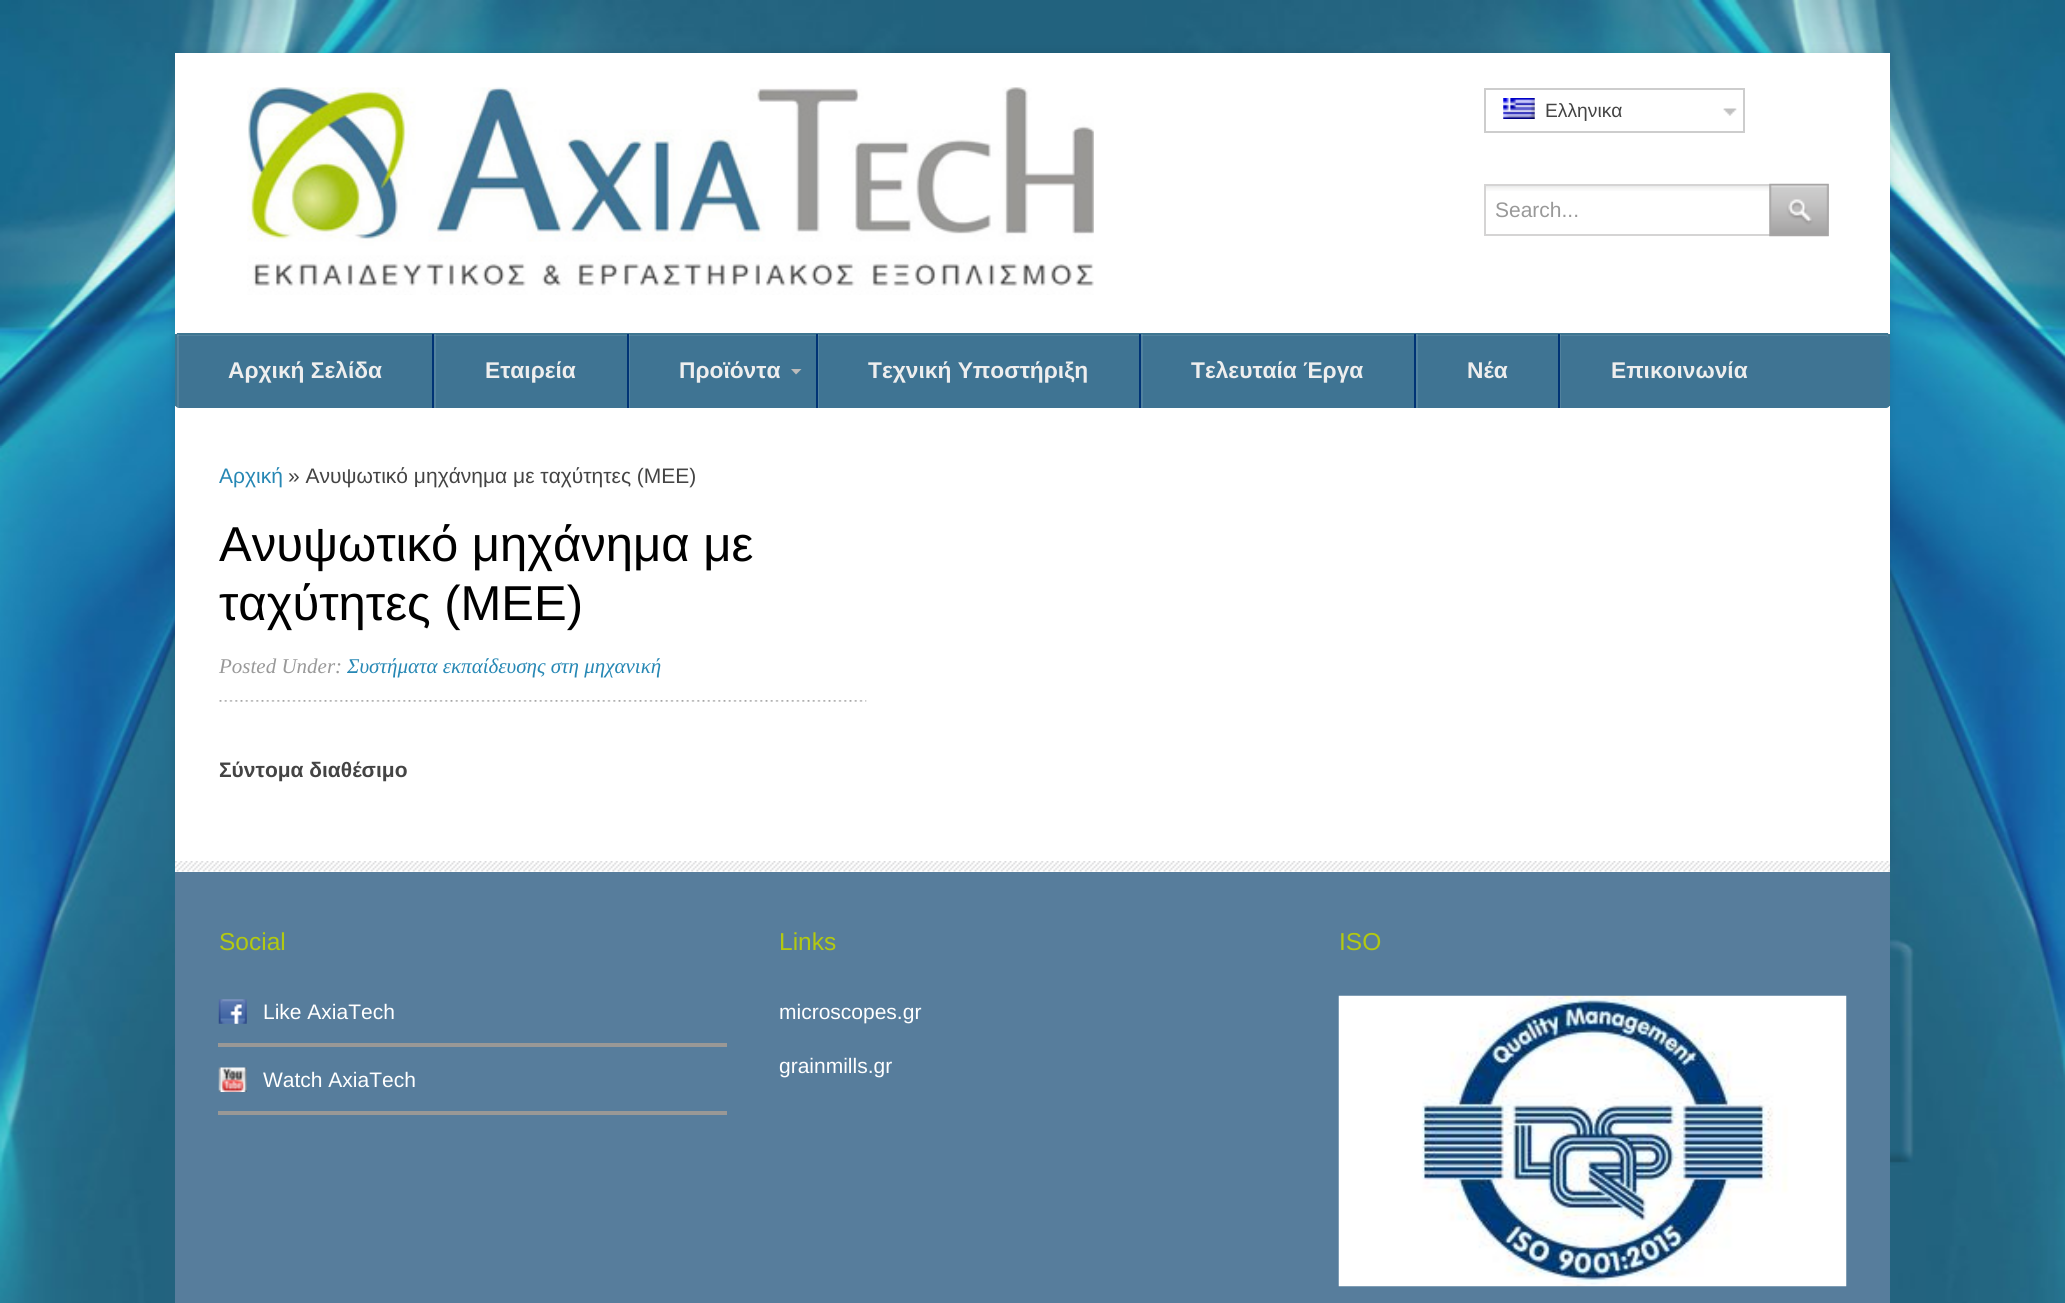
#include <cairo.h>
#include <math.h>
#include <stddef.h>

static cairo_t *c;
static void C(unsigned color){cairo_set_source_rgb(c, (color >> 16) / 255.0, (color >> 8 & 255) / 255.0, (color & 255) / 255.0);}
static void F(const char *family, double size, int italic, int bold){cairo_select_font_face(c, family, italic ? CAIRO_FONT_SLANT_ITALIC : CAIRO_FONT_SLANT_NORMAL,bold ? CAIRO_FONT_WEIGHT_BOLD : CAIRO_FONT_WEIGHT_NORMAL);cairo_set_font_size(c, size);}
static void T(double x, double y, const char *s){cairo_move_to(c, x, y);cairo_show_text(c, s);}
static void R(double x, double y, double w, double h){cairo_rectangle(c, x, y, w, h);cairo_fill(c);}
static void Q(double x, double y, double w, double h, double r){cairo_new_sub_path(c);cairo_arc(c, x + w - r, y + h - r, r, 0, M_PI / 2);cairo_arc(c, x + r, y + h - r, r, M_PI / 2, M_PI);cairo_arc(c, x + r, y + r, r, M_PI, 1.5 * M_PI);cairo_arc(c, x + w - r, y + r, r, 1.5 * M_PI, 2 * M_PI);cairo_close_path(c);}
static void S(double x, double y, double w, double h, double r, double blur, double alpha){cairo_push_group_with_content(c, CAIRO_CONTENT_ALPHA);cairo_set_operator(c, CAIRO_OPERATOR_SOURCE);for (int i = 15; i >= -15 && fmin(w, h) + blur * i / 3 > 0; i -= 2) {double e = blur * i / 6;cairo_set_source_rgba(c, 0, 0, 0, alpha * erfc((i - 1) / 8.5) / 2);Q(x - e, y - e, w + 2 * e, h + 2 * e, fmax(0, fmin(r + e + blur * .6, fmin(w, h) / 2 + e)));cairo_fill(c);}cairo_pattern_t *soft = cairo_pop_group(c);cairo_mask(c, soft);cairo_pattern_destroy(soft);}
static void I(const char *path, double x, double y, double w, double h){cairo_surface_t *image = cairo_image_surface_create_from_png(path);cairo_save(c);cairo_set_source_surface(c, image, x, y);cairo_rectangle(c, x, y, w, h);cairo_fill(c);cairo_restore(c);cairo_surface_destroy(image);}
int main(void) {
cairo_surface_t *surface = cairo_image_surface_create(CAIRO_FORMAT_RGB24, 2065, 1303);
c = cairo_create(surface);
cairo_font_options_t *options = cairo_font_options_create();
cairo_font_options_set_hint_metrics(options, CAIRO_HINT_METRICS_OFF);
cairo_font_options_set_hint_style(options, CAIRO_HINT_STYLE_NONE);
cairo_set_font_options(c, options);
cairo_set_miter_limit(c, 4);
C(0xffffff);
cairo_paint(c);
I("1.png",0,0,2065,1303);
C(0x000000);
S(175,53,1715,808,0,5,.1);
C(0xffffff);
R(175,53,1715,819);
I("2.png",247,87,847,208);
I("3.png",1723,108,14,8);
cairo_rectangle(c,1485,89,259,43);
C(0xcdcdcd);
cairo_stroke(c);
I("4.png",1503,98,32,21);
F("Liberation Sans",19.25,0,0);
C(0x444444);
T(1545,117,"Ελληνικα");
I("5.png",1486,186,284,5);
cairo_rectangle(c,1485,185,343,50);
C(0xd5d4d4);
cairo_stroke(c);
F("Liberation Sans",21,0,0);
C(0x999999);
T(1495,217,"Search...");
I("6.png",1769,183,60,54);
C(0x3f7493);
Q(175,333,1715,75,4);
cairo_fill(c);
C(0x52829e);
cairo_new_path(c);
cairo_move_to(c,178,336);
cairo_line_to(c,1886,336);
cairo_curve_to(c,1887,336,1888,337,1888,338);
cairo_line_to(c,1888,406);
cairo_line_to(c,1888,336);
cairo_curve_to(c,1888,335,1887,334,1886,334);
cairo_line_to(c,178,334);
cairo_curve_to(c,178,334,177,335,177,336);
cairo_line_to(c,177,406);
cairo_line_to(c,177,338);
cairo_close_path(c);
cairo_fill(c);
C(0x3e7691);
R(177,333,1711,2);
R(1888,334,2,72);
R(175,334,2,72);
cairo_set_source_rgba(c,1,1,1,0.1);
R(177,334,2,74);
F("Liberation Sans",22.75,0,1);
C(0xeeeeee);
T(228,378,"Αρχική Σελίδα");
cairo_set_source_rgba(c,1,1,1,0.1);
R(434,334,2,74);
C(0x003375);
R(432,334,2,74);
C(0xeeeeee);
T(485,378,"Εταιρεία");
cairo_set_source_rgba(c,1,1,1,0.1);
R(629,334,1,74);
C(0x003375);
R(627,334,2,74);
C(0xeeeeee);
T(679,378,"Προϊόντα");
C(0xbbbbbb);
cairo_new_path(c);
cairo_move_to(c,791,369);
cairo_line_to(c,801.5,369);
cairo_line_to(c,796,374.5);
cairo_close_path(c);
cairo_fill(c);
cairo_set_source_rgba(c,1,1,1,0.1);
R(818,334,1,74);
C(0x003375);
R(816,334,2,74);
C(0xeeeeee);
T(868,378,"Τεχνική Υποστήριξη");
cairo_set_source_rgba(c,1,1,1,0.1);
R(1141,334,2,74);
C(0x003375);
R(1139,334,2,74);
C(0xeeeeee);
T(1191,378,"Τελευταία Έργα");
cairo_set_source_rgba(c,1,1,1,0.1);
R(1416,334,2,74);
C(0x003375);
R(1414,334,2,74);
C(0xeeeeee);
T(1467,378,"Νέα");
cairo_set_source_rgba(c,1,1,1,0.1);
R(1560,334,1,74);
C(0x003375);
R(1558,334,2,74);
C(0xeeeeee);
T(1611,378,"Επικοινωνία");
F("Liberation Sans",21,0,0);
C(0x2687b4);
T(219,483,"Αρχική");
C(0x444444);
T(288,483,"» Ανυψωτικό μηχάνημα με ταχύτητες (MEE)");
F("Liberation Sans",49,0,0);
C(0x000000);
T(219,561,"Ανυψωτικό μηχάνημα με");
T(219,620,"ταχύτητες (MEE)");
I("7.png",219,700,648,2);
F("Liberation Serif",21,1,0);
C(0x999999);
T(219,673,"Posted Under:");
C(0x2687b4);
T(347,673,"Συστήματα εκπαίδευσης στη μηχανική");
F("Liberation Sans",21,0,1);
C(0x444444);
T(219,777,"Σύντομα διαθέσιμο");
I("8.png",175,861,1715,11);
C(0x577d9c);
R(175,872,1715,431);
F("Liberation Sans",24.5,0,0);
C(0xb3c910);
T(219,950,"Social");
C(0x999896);
R(218,1043,509,4);
I("9.png",218,999,29,25);
F("Liberation Sans",21,0,0);
C(0xffffff);
T(263,1019,"Like AxiaTech");
C(0x999896);
R(218,1111,509,4);
I("10.png",218,1067,29,25);
C(0xffffff);
T(263,1087,"Watch AxiaTech");
F("Liberation Sans",24.5,0,0);
C(0xb3c910);
T(779,950,"Links");
F("Liberation Sans",21,0,0);
C(0xffffff);
T(779,1019,"microscopes.gr");
T(779,1073,"grainmills.gr");
F("Liberation Sans",24.5,0,0);
C(0xb3c910);
T(1339,950,"ISO");
I("11.png",1338,995,509,292);
cairo_surface_write_to_png(surface, "o.png");
cairo_font_options_destroy(options);
cairo_destroy(c);
cairo_surface_destroy(surface);
return 0;
}
